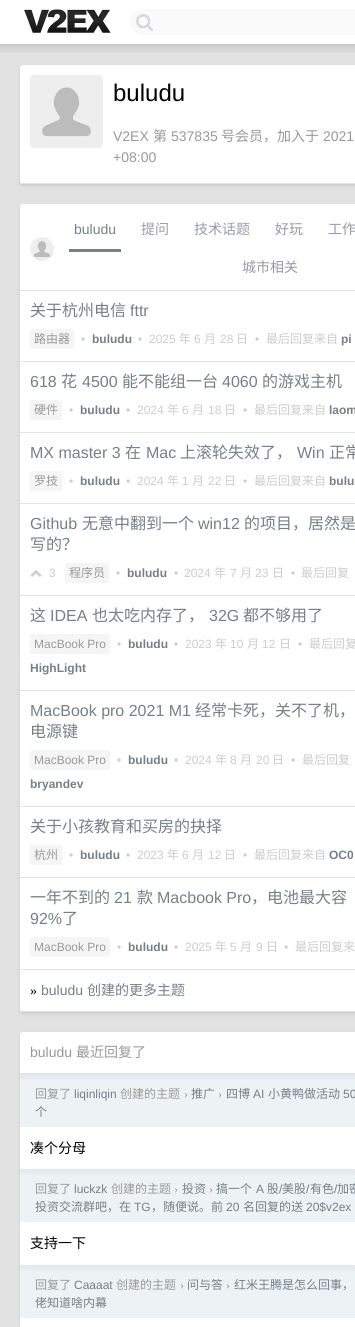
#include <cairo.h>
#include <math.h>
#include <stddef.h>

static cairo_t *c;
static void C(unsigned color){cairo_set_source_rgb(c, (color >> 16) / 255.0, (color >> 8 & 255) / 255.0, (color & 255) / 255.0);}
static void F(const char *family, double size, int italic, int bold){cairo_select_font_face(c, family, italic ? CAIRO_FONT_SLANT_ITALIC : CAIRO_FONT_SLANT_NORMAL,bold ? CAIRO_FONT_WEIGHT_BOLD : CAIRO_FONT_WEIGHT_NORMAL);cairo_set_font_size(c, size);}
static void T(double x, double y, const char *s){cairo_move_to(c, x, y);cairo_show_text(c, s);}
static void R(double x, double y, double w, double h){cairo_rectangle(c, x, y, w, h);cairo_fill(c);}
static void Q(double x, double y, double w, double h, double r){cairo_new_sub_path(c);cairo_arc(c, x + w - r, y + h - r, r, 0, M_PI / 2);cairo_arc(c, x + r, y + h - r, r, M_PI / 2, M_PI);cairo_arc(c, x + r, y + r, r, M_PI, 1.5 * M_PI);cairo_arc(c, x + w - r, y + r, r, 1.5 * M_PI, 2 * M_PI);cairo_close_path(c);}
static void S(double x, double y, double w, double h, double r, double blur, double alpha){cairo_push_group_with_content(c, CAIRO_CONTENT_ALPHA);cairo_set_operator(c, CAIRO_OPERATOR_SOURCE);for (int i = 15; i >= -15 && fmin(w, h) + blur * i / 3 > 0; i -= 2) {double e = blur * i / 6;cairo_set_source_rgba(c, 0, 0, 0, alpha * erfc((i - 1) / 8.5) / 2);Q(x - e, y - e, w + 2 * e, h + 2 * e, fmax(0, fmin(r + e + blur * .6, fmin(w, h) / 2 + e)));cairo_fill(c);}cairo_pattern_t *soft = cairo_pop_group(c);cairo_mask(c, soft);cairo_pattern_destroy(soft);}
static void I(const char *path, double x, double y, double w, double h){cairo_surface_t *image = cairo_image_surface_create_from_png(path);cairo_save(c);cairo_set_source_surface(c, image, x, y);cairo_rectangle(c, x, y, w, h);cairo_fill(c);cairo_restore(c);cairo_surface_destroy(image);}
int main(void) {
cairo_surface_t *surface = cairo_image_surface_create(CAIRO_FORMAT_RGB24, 355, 1327);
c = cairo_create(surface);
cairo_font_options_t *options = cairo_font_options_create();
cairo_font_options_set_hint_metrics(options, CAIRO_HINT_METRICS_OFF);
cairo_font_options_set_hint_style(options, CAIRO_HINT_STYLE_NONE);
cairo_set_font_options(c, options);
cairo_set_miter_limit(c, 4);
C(0xffffff);
cairo_paint(c);
C(0xc7c7c7);
R(0,44,355,1);
I("1.png",24,9,87,24);
C(0xfafafa);
Q(130,9,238,26,13);
cairo_fill(c);
I("2.png",136,14,17,17);
C(0xe2e2e2);
R(0,45,355,1282);
I("3.png",0,45,355,8);
C(0x000000);
S(20,67,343,119,3,1.5,.1);
C(0xffffff);
Q(20,65,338,119,3);
cairo_fill(c);
C(0xe2e2e2);
R(22,183,333,1);
I("4.png",30,75,73,73);
F("Liberation Sans",24,0,0);
C(0x000000);
T(113,101,"buludu");
F("Liberation Sans",14,0,0);
C(0x999999);
T(113,141,"V2EX");
F("Noto Sans CJK SC",14,0,0);
T(153,141,"第");
F("Liberation Sans",14,0,0);
T(171,141,"537835");
F("Noto Sans CJK SC",14,0,0);
T(221,141,"号会员，加入于");
F("Liberation Sans",14,0,0);
T(323,141,"2021");
T(113,162,"+08:00");
C(0x000000);
S(20,206,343,808,3,1.5,.1);
C(0xffffff);
Q(20,204,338,808,3);
cairo_fill(c);
C(0xe2e2e2);
R(22,1011,333,1);
R(20,290,335,1);
I("5.png",30,237,24,24);
C(0x778087);
R(69,249,52,3);
T(74,234,"buludu");
F("Noto Sans CJK SC",14,0,0);
C(0x9999aa);
T(141,234,"提问");
T(194,234,"技术话题");
T(275,234,"好玩");
T(328,234,"工作");
T(242,272,"城市相关");
C(0xe2e2e2);
R(20,361,335,1);
F("Noto Sans CJK SC",16,0,0);
C(0x778087);
T(30,316,"关于杭州电信");
F("Liberation Sans",16,0,0);
T(130,316,"fttr");
C(0xf5f5f5);
Q(30,329,44,20,2);
cairo_fill(c);
F("Noto Sans CJK SC",12,0,0);
C(0x999999);
T(34,343,"路由器");
F("Liberation Sans",12,0,0);
C(0xcccccc);
T(81,343,"•");
F("Liberation Sans",12,0,1);
C(0x778087);
T(92,343,"buludu");
F("Liberation Sans",12,0,0);
C(0xcccccc);
T(138,343,"•");
T(149,343,"2025");
F("Noto Sans CJK SC",12,0,0);
T(179,343,"年");
F("Liberation Sans",12,0,0);
T(194,343,"6");
F("Noto Sans CJK SC",12,0,0);
T(204,343,"月");
F("Liberation Sans",12,0,0);
T(220,343,"28");
F("Noto Sans CJK SC",12,0,0);
T(236,343,"日");
F("Liberation Sans",12,0,0);
T(255,343,"•");
F("Noto Sans CJK SC",12,0,0);
T(266,343,"最后回复来自");
F("Liberation Sans",12,0,1);
C(0x778087);
T(341,343,"pi");
C(0xe2e2e2);
R(20,432,335,1);
F("Liberation Sans",16,0,0);
C(0x778087);
T(30,387,"618");
F("Noto Sans CJK SC",16,0,0);
T(61,387,"花");
F("Liberation Sans",16,0,0);
T(82,387,"4500");
F("Noto Sans CJK SC",16,0,0);
T(122,387,"能不能组一台");
F("Liberation Sans",16,0,0);
T(222,387,"4060");
F("Noto Sans CJK SC",16,0,0);
T(262,387,"的游戏主机");
C(0xf5f5f5);
Q(30,400,32,20,2);
cairo_fill(c);
F("Noto Sans CJK SC",12,0,0);
C(0x999999);
T(34,414,"硬件");
F("Liberation Sans",12,0,0);
C(0xcccccc);
T(69,414,"•");
F("Liberation Sans",12,0,1);
C(0x778087);
T(80,414,"buludu");
F("Liberation Sans",12,0,0);
C(0xcccccc);
T(126,414,"•");
T(137,414,"2024");
F("Noto Sans CJK SC",12,0,0);
T(167,414,"年");
F("Liberation Sans",12,0,0);
T(182,414,"6");
F("Noto Sans CJK SC",12,0,0);
T(192,414,"月");
F("Liberation Sans",12,0,0);
T(208,414,"18");
F("Noto Sans CJK SC",12,0,0);
T(224,414,"日");
F("Liberation Sans",12,0,0);
T(243,414,"•");
F("Noto Sans CJK SC",12,0,0);
T(254,414,"最后回复来自");
F("Liberation Sans",12,0,1);
C(0x778087);
T(329,414,"laom");
C(0xe2e2e2);
R(20,503,335,1);
F("Liberation Sans",16,0,0);
C(0x778087);
T(30,458,"MX master 3");
F("Noto Sans CJK SC",16,0,0);
T(125,458,"在");
F("Liberation Sans",16,0,0);
T(146,458,"Mac");
F("Noto Sans CJK SC",16,0,0);
T(180,458,"上滚轮失效了，");
F("Liberation Sans",16,0,0);
T(297,458,"Win");
F("Noto Sans CJK SC",16,0,0);
T(329,458,"正常");
C(0xf5f5f5);
Q(30,471,32,20,2);
cairo_fill(c);
F("Noto Sans CJK SC",12,0,0);
C(0x999999);
T(34,485,"罗技");
F("Liberation Sans",12,0,0);
C(0xcccccc);
T(69,485,"•");
F("Liberation Sans",12,0,1);
C(0x778087);
T(80,485,"buludu");
F("Liberation Sans",12,0,0);
C(0xcccccc);
T(126,485,"•");
T(137,485,"2024");
F("Noto Sans CJK SC",12,0,0);
T(167,485,"年");
F("Liberation Sans",12,0,0);
T(182,485,"1");
F("Noto Sans CJK SC",12,0,0);
T(192,485,"月");
F("Liberation Sans",12,0,0);
T(208,485,"22");
F("Noto Sans CJK SC",12,0,0);
T(224,485,"日");
F("Liberation Sans",12,0,0);
T(243,485,"•");
F("Noto Sans CJK SC",12,0,0);
T(254,485,"最后回复来自");
F("Liberation Sans",12,0,1);
C(0x778087);
T(329,485,"bulu");
C(0xe2e2e2);
R(20,595,335,1);
F("Liberation Sans",16,0,0);
C(0x778087);
T(30,529,"Github");
F("Noto Sans CJK SC",16,0,0);
T(82,529,"无意中翻到一个");
F("Liberation Sans",16,0,0);
T(198,529,"win12");
F("Noto Sans CJK SC",16,0,0);
T(244,529,"的项目，居然是");
T(30,550,"写的？");
I("6.png",30,570,12,7);
F("Liberation Sans",12,0,0);
C(0xcccccc);
T(49,577,"3");
C(0xf5f5f5);
Q(65,563,44,20,2);
cairo_fill(c);
F("Noto Sans CJK SC",12,0,0);
C(0x999999);
T(69,577,"程序员");
F("Liberation Sans",12,0,0);
C(0xcccccc);
T(116,577,"•");
F("Liberation Sans",12,0,1);
C(0x778087);
T(127,577,"buludu");
F("Liberation Sans",12,0,0);
C(0xcccccc);
T(174,577,"•");
T(184,577,"2024");
F("Noto Sans CJK SC",12,0,0);
T(214,577,"年");
F("Liberation Sans",12,0,0);
T(230,577,"7");
F("Noto Sans CJK SC",12,0,0);
T(240,577,"月");
F("Liberation Sans",12,0,0);
T(255,577,"23");
F("Noto Sans CJK SC",12,0,0);
T(272,577,"日");
F("Liberation Sans",12,0,0);
T(291,577,"•");
F("Noto Sans CJK SC",12,0,0);
T(301,577,"最后回复");
C(0xe2e2e2);
R(20,690,335,1);
F("Noto Sans CJK SC",16,0,0);
C(0x778087);
T(30,621,"这");
F("Liberation Sans",16,0,0);
T(50,621,"IDEA");
F("Noto Sans CJK SC",16,0,0);
T(92,621,"也太吃内存了，");
F("Liberation Sans",16,0,0);
T(209,621,"32G");
F("Noto Sans CJK SC",16,0,0);
T(243,621,"都不够用了");
C(0xf5f5f5);
Q(30,634,80,20,2);
cairo_fill(c);
F("Liberation Sans",12,0,0);
C(0x999999);
T(34,648,"MacBook Pro");
C(0xcccccc);
T(117,648,"•");
F("Liberation Sans",12,0,1);
C(0x778087);
T(128,648,"buludu");
F("Liberation Sans",12,0,0);
C(0xcccccc);
T(174,648,"•");
T(185,648,"2023");
F("Noto Sans CJK SC",12,0,0);
T(215,648,"年");
F("Liberation Sans",12,0,0);
T(230,648,"10");
F("Noto Sans CJK SC",12,0,0);
T(247,648,"月");
F("Liberation Sans",12,0,0);
T(262,648,"12");
F("Noto Sans CJK SC",12,0,0);
T(279,648,"日");
F("Liberation Sans",12,0,0);
T(298,648,"•");
F("Noto Sans CJK SC",12,0,0);
T(309,648,"最后回复");
F("Liberation Sans",12,0,1);
C(0x778087);
T(30,672,"HighLight");
C(0xe2e2e2);
R(20,806,335,1);
F("Liberation Sans",16,0,0);
C(0x778087);
T(30,716,"MacBook pro 2021 M1");
F("Noto Sans CJK SC",16,0,0);
T(195,716,"经常卡死，关不了机，");
T(30,737,"电源键");
C(0xf5f5f5);
Q(30,750,80,20,2);
cairo_fill(c);
F("Liberation Sans",12,0,0);
C(0x999999);
T(34,764,"MacBook Pro");
C(0xcccccc);
T(117,764,"•");
F("Liberation Sans",12,0,1);
C(0x778087);
T(128,764,"buludu");
F("Liberation Sans",12,0,0);
C(0xcccccc);
T(174,764,"•");
T(185,764,"2024");
F("Noto Sans CJK SC",12,0,0);
T(215,764,"年");
F("Liberation Sans",12,0,0);
T(230,764,"8");
F("Noto Sans CJK SC",12,0,0);
T(240,764,"月");
F("Liberation Sans",12,0,0);
T(256,764,"20");
F("Noto Sans CJK SC",12,0,0);
T(272,764,"日");
F("Liberation Sans",12,0,0);
T(291,764,"•");
F("Noto Sans CJK SC",12,0,0);
T(302,764,"最后回复");
F("Liberation Sans",12,0,1);
C(0x778087);
T(30,788,"bryandev");
C(0xe2e2e2);
R(20,877,335,1);
F("Noto Sans CJK SC",16,0,0);
C(0x778087);
T(30,832,"关于小孩教育和买房的抉择");
C(0xf5f5f5);
Q(30,845,32,20,2);
cairo_fill(c);
F("Noto Sans CJK SC",12,0,0);
C(0x999999);
T(34,859,"杭州");
F("Liberation Sans",12,0,0);
C(0xcccccc);
T(69,859,"•");
F("Liberation Sans",12,0,1);
C(0x778087);
T(80,859,"buludu");
F("Liberation Sans",12,0,0);
C(0xcccccc);
T(126,859,"•");
T(137,859,"2023");
F("Noto Sans CJK SC",12,0,0);
T(167,859,"年");
F("Liberation Sans",12,0,0);
T(182,859,"6");
F("Noto Sans CJK SC",12,0,0);
T(192,859,"月");
F("Liberation Sans",12,0,0);
T(208,859,"12");
F("Noto Sans CJK SC",12,0,0);
T(224,859,"日");
F("Liberation Sans",12,0,0);
T(243,859,"•");
F("Noto Sans CJK SC",12,0,0);
T(254,859,"最后回复来自");
F("Liberation Sans",12,0,1);
C(0x778087);
T(329,859,"OC0");
C(0xe2e2e2);
R(20,969,335,1);
F("Noto Sans CJK SC",16,0,0);
C(0x778087);
T(30,903,"一年不到的");
F("Liberation Sans",16,0,0);
T(114,903,"21");
F("Noto Sans CJK SC",16,0,0);
T(137,903,"款");
F("Liberation Sans",16,0,0);
T(157,903,"Macbook Pro");
F("Noto Sans CJK SC",16,0,0);
T(251,903,"，电池最大容");
F("Liberation Sans",16,0,0);
T(30,924,"92%");
F("Noto Sans CJK SC",16,0,0);
T(62,924,"了");
C(0xf5f5f5);
Q(30,937,80,20,2);
cairo_fill(c);
F("Liberation Sans",12,0,0);
C(0x999999);
T(34,951,"MacBook Pro");
C(0xcccccc);
T(117,951,"•");
F("Liberation Sans",12,0,1);
C(0x778087);
T(128,951,"buludu");
F("Liberation Sans",12,0,0);
C(0xcccccc);
T(174,951,"•");
T(185,951,"2025");
F("Noto Sans CJK SC",12,0,0);
T(215,951,"年");
F("Liberation Sans",12,0,0);
T(230,951,"5");
F("Noto Sans CJK SC",12,0,0);
T(240,951,"月");
F("Liberation Sans",12,0,0);
T(256,951,"9");
F("Noto Sans CJK SC",12,0,0);
T(266,951,"日");
F("Liberation Sans",12,0,0);
T(284,951,"•");
F("Noto Sans CJK SC",12,0,0);
T(295,951,"最后回复来");
F("Liberation Serif",14,0,0);
C(0x000000);
T(30,995,"»");
F("Liberation Sans",14,0,0);
C(0x778087);
T(41,995,"buludu");
F("Noto Sans CJK SC",14,0,0);
T(87,995,"创建的更多主题");
C(0x000000);
S(20,1034,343,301,3,1.5,.1);
C(0xffffff);
Q(20,1032,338,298,3);
cairo_fill(c);
C(0xe2e2e2);
R(20,1073,335,1);
F("Liberation Sans",14,0,0);
C(0x999999);
T(30,1057,"buludu");
F("Noto Sans CJK SC",14,0,0);
T(76,1057,"最近回复了");
C(0xedf3f5);
R(20,1074,335,53);
I("7.png",20,1074,335,6);
F("Noto Sans CJK SC",12,0,0);
C(0x999999);
T(35,1098,"回复了");
F("Liberation Sans",12,0,0);
C(0x778087);
T(74,1098,"liqinliqin");
F("Noto Sans CJK SC",12,0,0);
C(0x999999);
T(120,1098,"创建的主题");
F("Liberation Serif",12,0,0);
T(184,1098,"›");
F("Noto Sans CJK SC",12,0,0);
C(0x778087);
T(191,1098,"推广");
F("Liberation Serif",12,0,0);
C(0x999999);
T(218,1098,"›");
F("Noto Sans CJK SC",12,0,0);
C(0x778087);
T(226,1098,"四博");
F("Liberation Sans",12,0,0);
T(253,1098,"AI");
F("Noto Sans CJK SC",12,0,0);
T(268,1098,"小黄鸭做活动");
F("Liberation Sans",12,0,0);
T(343,1098,"50");
F("Noto Sans CJK SC",12,0,0);
T(35,1116,"个");
F("Noto Sans CJK SC",14,0,0);
C(0x000000);
T(30,1153,"凑个分母");
C(0xedf3f5);
R(20,1169,335,53);
I("7.png",20,1169,335,6);
F("Noto Sans CJK SC",12,0,0);
C(0x999999);
T(35,1193,"回复了");
F("Liberation Sans",12,0,0);
C(0x778087);
T(74,1193,"luckzk");
F("Noto Sans CJK SC",12,0,0);
C(0x999999);
T(111,1193,"创建的主题");
F("Liberation Serif",12,0,0);
T(174,1193,"›");
F("Noto Sans CJK SC",12,0,0);
C(0x778087);
T(182,1193,"投资");
F("Liberation Serif",12,0,0);
C(0x999999);
T(209,1193,"›");
F("Noto Sans CJK SC",12,0,0);
C(0x778087);
T(216,1193,"搞一个");
F("Liberation Sans",12,0,0);
T(256,1193,"A");
F("Noto Sans CJK SC",12,0,0);
T(267,1193,"股");
F("Liberation Sans",12,0,0);
T(279,1193,"/");
F("Noto Sans CJK SC",12,0,0);
T(282,1193,"美股");
F("Liberation Sans",12,0,0);
T(306,1193,"/");
F("Noto Sans CJK SC",12,0,0);
T(310,1193,"有色");
F("Liberation Sans",12,0,0);
T(334,1193,"/");
F("Noto Sans CJK SC",12,0,0);
T(337,1193,"加密");
T(35,1211,"投资交流群吧，在");
F("Liberation Sans",12,0,0);
T(134,1211,"TG");
F("Noto Sans CJK SC",12,0,0);
T(151,1211,"，随便说。前");
F("Liberation Sans",12,0,0);
T(226,1211,"20");
F("Noto Sans CJK SC",12,0,0);
T(243,1211,"名回复的送");
F("Liberation Sans",12,0,0);
T(306,1211,"20$v2ex");
F("Noto Sans CJK SC",14,0,0);
C(0x000000);
T(30,1248,"支持一下");
C(0xedf3f5);
R(20,1265,335,53);
I("7.png",20,1265,335,6);
F("Noto Sans CJK SC",12,0,0);
C(0x999999);
T(35,1289,"回复了");
F("Liberation Sans",12,0,0);
C(0x778087);
T(74,1289,"Caaaat");
F("Noto Sans CJK SC",12,0,0);
C(0x999999);
T(116,1289,"创建的主题");
F("Liberation Serif",12,0,0);
T(180,1289,"›");
F("Noto Sans CJK SC",12,0,0);
C(0x778087);
T(187,1289,"问与答");
F("Liberation Serif",12,0,0);
C(0x999999);
T(226,1289,"›");
F("Noto Sans CJK SC",12,0,0);
C(0x778087);
T(234,1289,"红米王腾是怎么回事，");
T(35,1307,"佬知道啥内幕");
cairo_surface_write_to_png(surface, "o.png");
cairo_font_options_destroy(options);
cairo_destroy(c);
cairo_surface_destroy(surface);
return 0;
}
